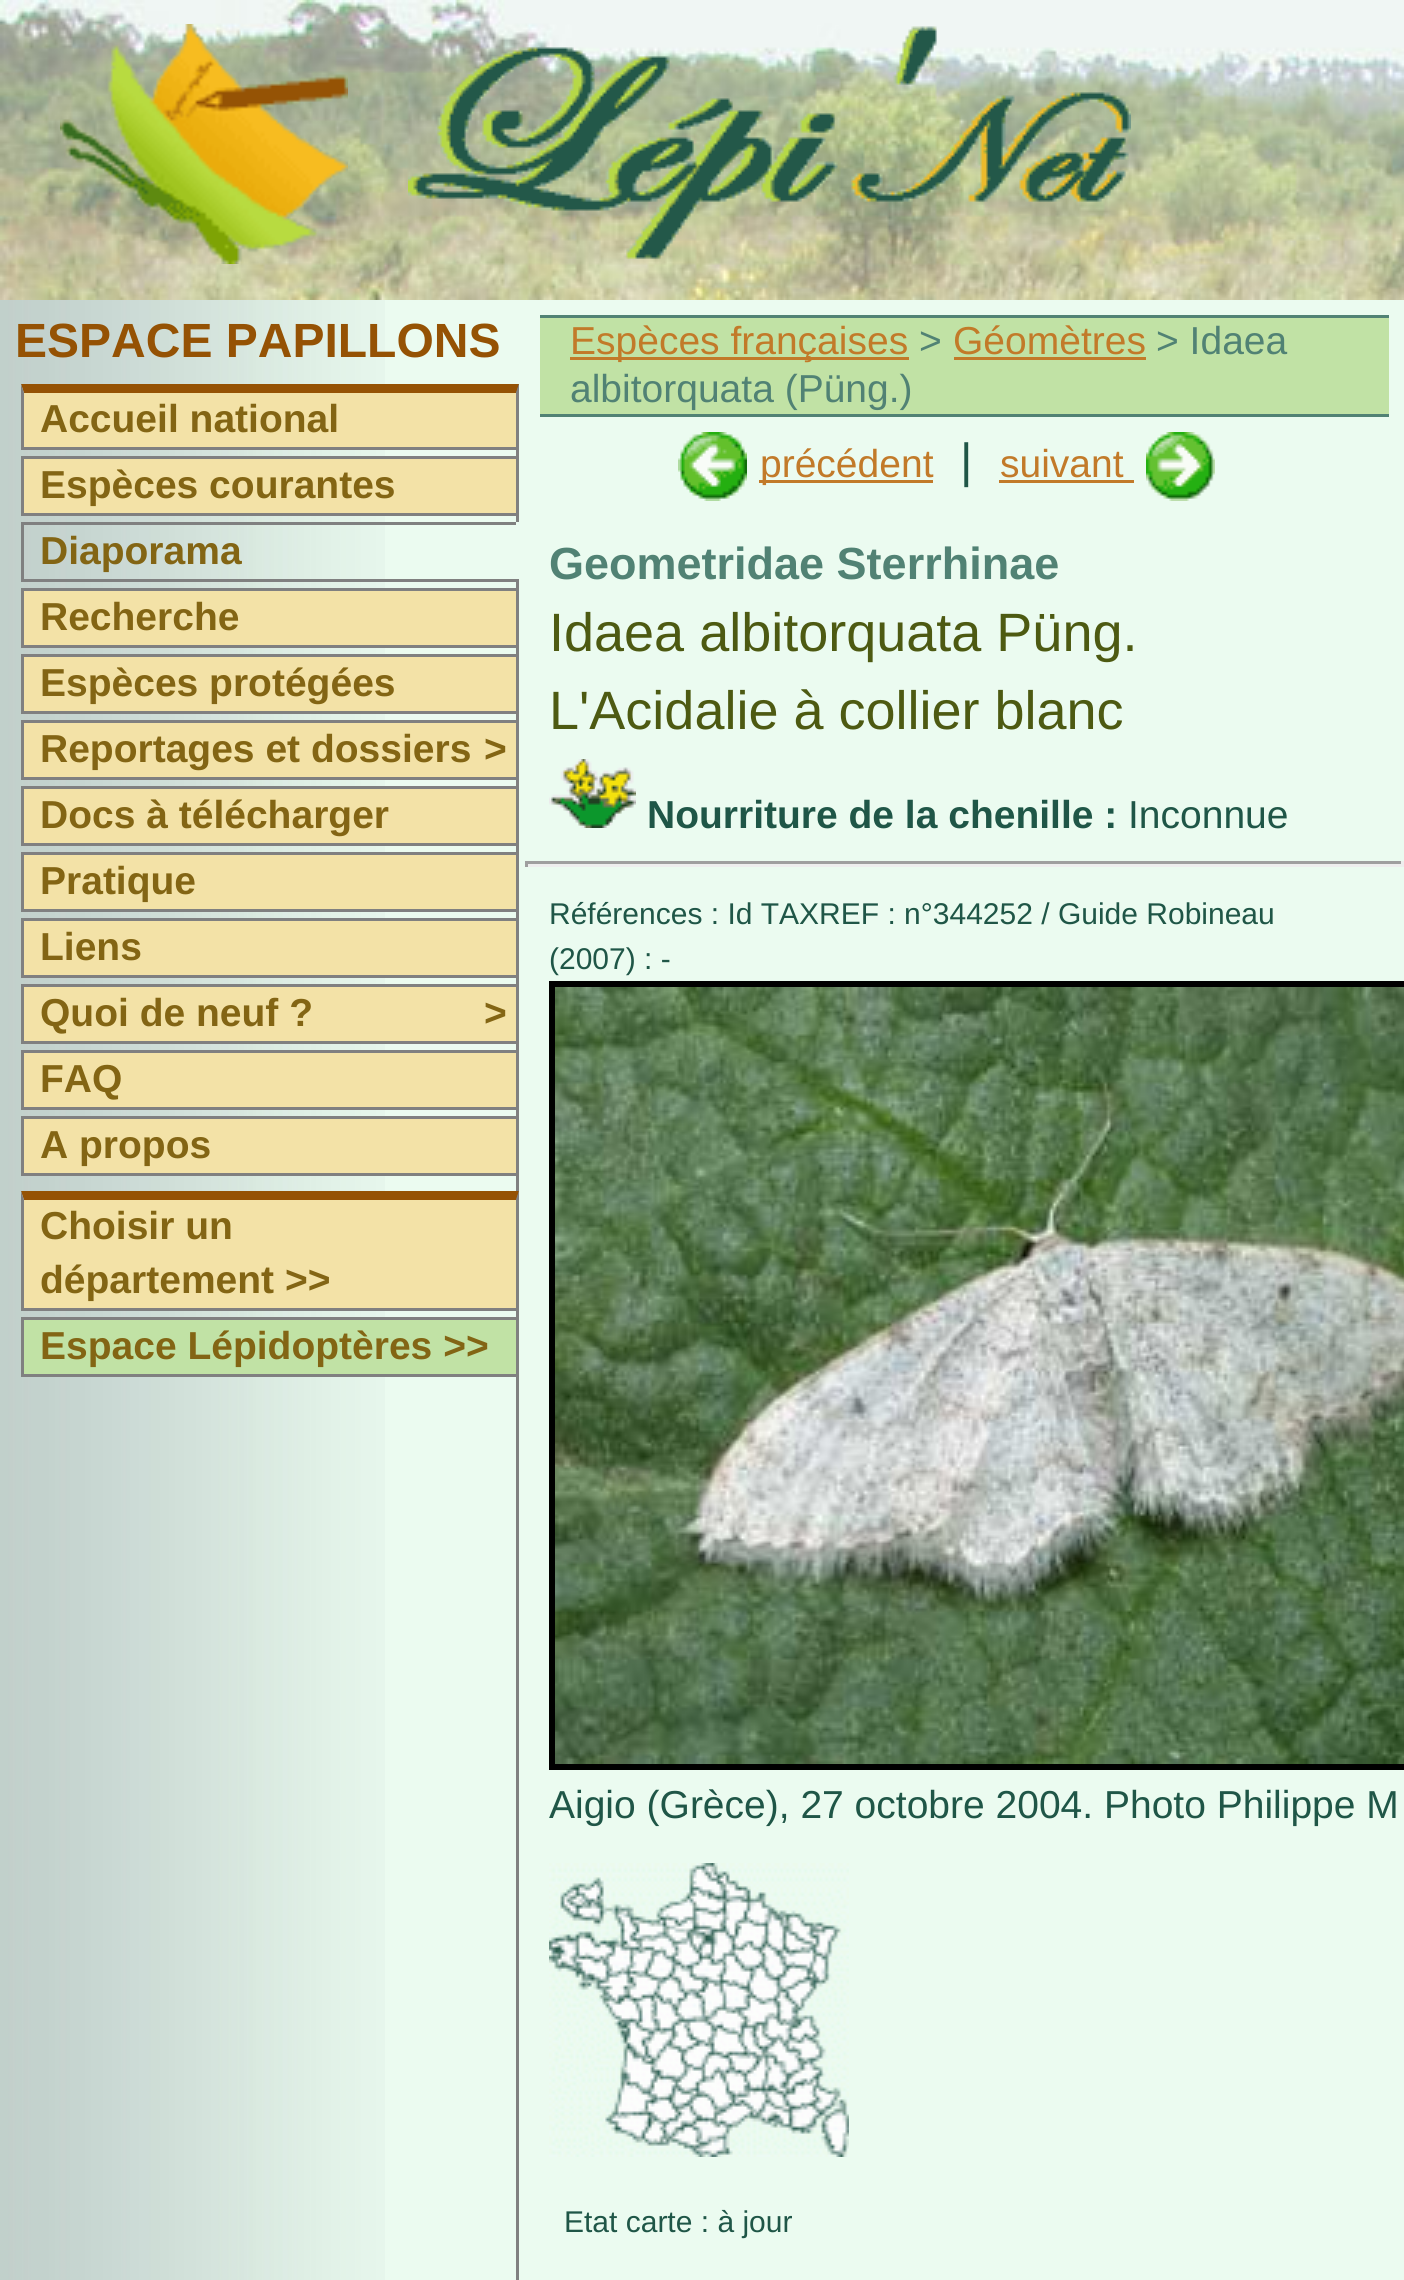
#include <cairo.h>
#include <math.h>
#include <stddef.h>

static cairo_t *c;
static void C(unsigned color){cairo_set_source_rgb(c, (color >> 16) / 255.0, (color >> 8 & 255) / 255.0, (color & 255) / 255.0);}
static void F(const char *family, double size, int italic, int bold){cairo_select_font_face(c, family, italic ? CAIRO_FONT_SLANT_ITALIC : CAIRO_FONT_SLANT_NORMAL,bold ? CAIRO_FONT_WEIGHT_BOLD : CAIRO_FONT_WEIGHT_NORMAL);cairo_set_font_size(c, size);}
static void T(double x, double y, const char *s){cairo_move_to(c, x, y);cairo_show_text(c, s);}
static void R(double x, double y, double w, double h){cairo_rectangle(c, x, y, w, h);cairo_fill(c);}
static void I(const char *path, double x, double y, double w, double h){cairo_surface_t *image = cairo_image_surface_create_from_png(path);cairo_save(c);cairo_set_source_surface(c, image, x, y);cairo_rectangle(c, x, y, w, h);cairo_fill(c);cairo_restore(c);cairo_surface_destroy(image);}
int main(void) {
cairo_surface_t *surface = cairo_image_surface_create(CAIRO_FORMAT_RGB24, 1404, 2280);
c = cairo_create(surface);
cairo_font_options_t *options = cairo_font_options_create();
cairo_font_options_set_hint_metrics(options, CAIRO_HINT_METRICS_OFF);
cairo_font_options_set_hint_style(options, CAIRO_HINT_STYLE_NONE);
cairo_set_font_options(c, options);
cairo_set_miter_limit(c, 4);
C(0xebfbf0);
cairo_paint(c);
I("1.png",0,0,1404,300);
I("2.png",60,24,288,240);
I("3.png",408,26,723,233);
I("4.png",0,300,385,1980);
F("Liberation Sans",48,0,1);
C(0x955204);
T(15,357,"ESPACE PAPILLONS");
C(0x808080);
R(516,384,3,1896);
C(0xf3e2a7);
R(24,393,492,54);
C(0x955204);
cairo_new_path(c);
cairo_move_to(c,21,384);
cairo_line_to(c,519,384);
cairo_line_to(c,516,393);
cairo_line_to(c,24,393);
cairo_close_path(c);
cairo_fill(c);
C(0x808080);
cairo_new_path(c);
cairo_move_to(c,519,384);
cairo_line_to(c,519,450);
cairo_line_to(c,516,447);
cairo_line_to(c,516,393);
cairo_close_path(c);
cairo_fill(c);
R(21,447,498,3);
cairo_new_path(c);
cairo_move_to(c,21,450);
cairo_line_to(c,21,384);
cairo_line_to(c,24,393);
cairo_line_to(c,24,447);
cairo_close_path(c);
cairo_fill(c);
F("Liberation Sans",39,0,1);
C(0x836514);
T(40,432,"Accueil national");
C(0xf3e2a7);
cairo_rectangle(c,22.5,457.5,495,57);
cairo_fill_preserve(c);
C(0x808080);
cairo_set_line_width(c,3);
cairo_stroke(c);
C(0x836514);
T(40,498,"Espèces courantes");
C(0x808080);
R(21,522,498,3);
C(0xebfbf0);
R(516,522,3,60);
C(0x808080);
R(21,579,498,3);
R(21,522,3,60);
C(0x836514);
T(40,564,"Diaporama");
C(0xf3e2a7);
cairo_rectangle(c,22.5,589.5,495,57);
cairo_fill_preserve(c);
C(0x808080);
cairo_stroke(c);
C(0x836514);
T(40,630,"Recherche");
C(0xf3e2a7);
cairo_rectangle(c,22.5,655.5,495,57);
cairo_fill_preserve(c);
C(0x808080);
cairo_stroke(c);
C(0x836514);
T(40,696,"Espèces protégées");
C(0xf3e2a7);
cairo_rectangle(c,22.5,721.5,495,57);
cairo_fill_preserve(c);
C(0x808080);
cairo_stroke(c);
C(0x836514);
T(40,762,"Reportages et dossiers");
T(484,762,">");
C(0xf3e2a7);
cairo_rectangle(c,22.5,787.5,495,57);
cairo_fill_preserve(c);
C(0x808080);
cairo_stroke(c);
C(0x836514);
T(40,828,"Docs à télécharger");
C(0xf3e2a7);
cairo_rectangle(c,22.5,853.5,495,57);
cairo_fill_preserve(c);
C(0x808080);
cairo_stroke(c);
C(0x836514);
T(40,894,"Pratique");
C(0xf3e2a7);
cairo_rectangle(c,22.5,919.5,495,57);
cairo_fill_preserve(c);
C(0x808080);
cairo_stroke(c);
C(0x836514);
T(40,960,"Liens");
C(0xf3e2a7);
cairo_rectangle(c,22.5,985.5,495,57);
cairo_fill_preserve(c);
C(0x808080);
cairo_stroke(c);
C(0x836514);
T(40,1026,"Quoi de neuf ?");
T(484,1026,">");
C(0xf3e2a7);
cairo_rectangle(c,22.5,1051.5,495,57);
cairo_fill_preserve(c);
C(0x808080);
cairo_stroke(c);
C(0x836514);
T(40,1092,"FAQ");
C(0xf3e2a7);
cairo_rectangle(c,22.5,1117.5,495,57);
cairo_fill_preserve(c);
C(0x808080);
cairo_stroke(c);
C(0x836514);
T(40,1158,"A propos");
C(0xf3e2a7);
R(24,1200,492,108);
C(0x955204);
cairo_new_path(c);
cairo_move_to(c,21,1191);
cairo_line_to(c,519,1191);
cairo_line_to(c,516,1200);
cairo_line_to(c,24,1200);
cairo_close_path(c);
cairo_fill(c);
C(0x808080);
cairo_new_path(c);
cairo_move_to(c,519,1191);
cairo_line_to(c,519,1311);
cairo_line_to(c,516,1308);
cairo_line_to(c,516,1200);
cairo_close_path(c);
cairo_fill(c);
R(21,1308,498,3);
cairo_new_path(c);
cairo_move_to(c,21,1311);
cairo_line_to(c,21,1191);
cairo_line_to(c,24,1200);
cairo_line_to(c,24,1308);
cairo_close_path(c);
cairo_fill(c);
C(0x836514);
T(40,1239,"Choisir un");
T(40,1293,"département >>");
C(0xc1e2a5);
cairo_rectangle(c,22.5,1318.5,495,57);
cairo_fill_preserve(c);
C(0x808080);
cairo_stroke(c);
C(0x836514);
T(40,1359,"Espace Lépidoptères >>");
C(0xc1e2a5);
R(540,318,849,96);
C(0x518274);
R(540,315,849,3);
R(540,414,849,3);
C(0xc27a29);
R(570,357,339,3);
F("Liberation Sans",39,0,0);
T(570,354,"Espèces françaises");
C(0x518274);
T(919,354,">");
C(0xc27a29);
T(953,354,"Géomètres");
R(954,357,192,3);
C(0x518274);
T(1156,354,"> Idaea");
T(570,402,"albitorquata (Püng.)");
I("5.png",678,432,69,69);
C(0xc27a29);
R(759,480,174,3);
T(760,477,"précédent");
F("Liberation Sans",48,0,0);
C(0x1f5647);
T(960,477,"|");
F("Liberation Sans",39,0,0);
C(0xc27a29);
T(1000,477,"suivant");
R(999,480,135,3);
I("6.png",1146,432,69,69);
F("Liberation Sans",45,0,1);
C(0x518274);
T(549,579,"Geometridae Sterrhinae");
F("Liberation Sans",54,0,0);
C(0x4d5a12);
T(549,651,"Idaea albitorquata Püng.");
T(549,729,"L'Acidalie à collier blanc");
I("7.png",549,759,87,69);
F("Liberation Sans",39,0,1);
C(0x1f5647);
T(647,828,"Nourriture de la chenille :");
F("Liberation Sans",39,0,0);
T(1128,828,"Inconnue");
C(0x9f9f9f);
R(525,861,879,3);
C(0xeeeeee);
R(1401,861,3,6);
R(525,864,879,3);
C(0x9f9f9f);
R(525,861,3,6);
F("Liberation Sans",30,0,0);
C(0x1f5647);
T(549,924,"Références : Id TAXREF : n°344252 / Guide Robineau");
T(549,969,"(2007) : -");
cairo_rectangle(c,552,984,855,783);
C(0x000000);
cairo_set_line_width(c,6);
cairo_stroke(c);
I("8.png",555,987,849,777);
F("Liberation Sans",39,0,0);
C(0x1f5647);
T(549,1818,"Aigio (Grèce), 27 octobre 2004. Photo Philippe M");
I("9.png",549,1863,300,294);
F("Liberation Sans",30,0,0);
T(564,2232,"Etat carte : à jour");
cairo_surface_write_to_png(surface, "o.png");
cairo_font_options_destroy(options);
cairo_destroy(c);
cairo_surface_destroy(surface);
return 0;
}
